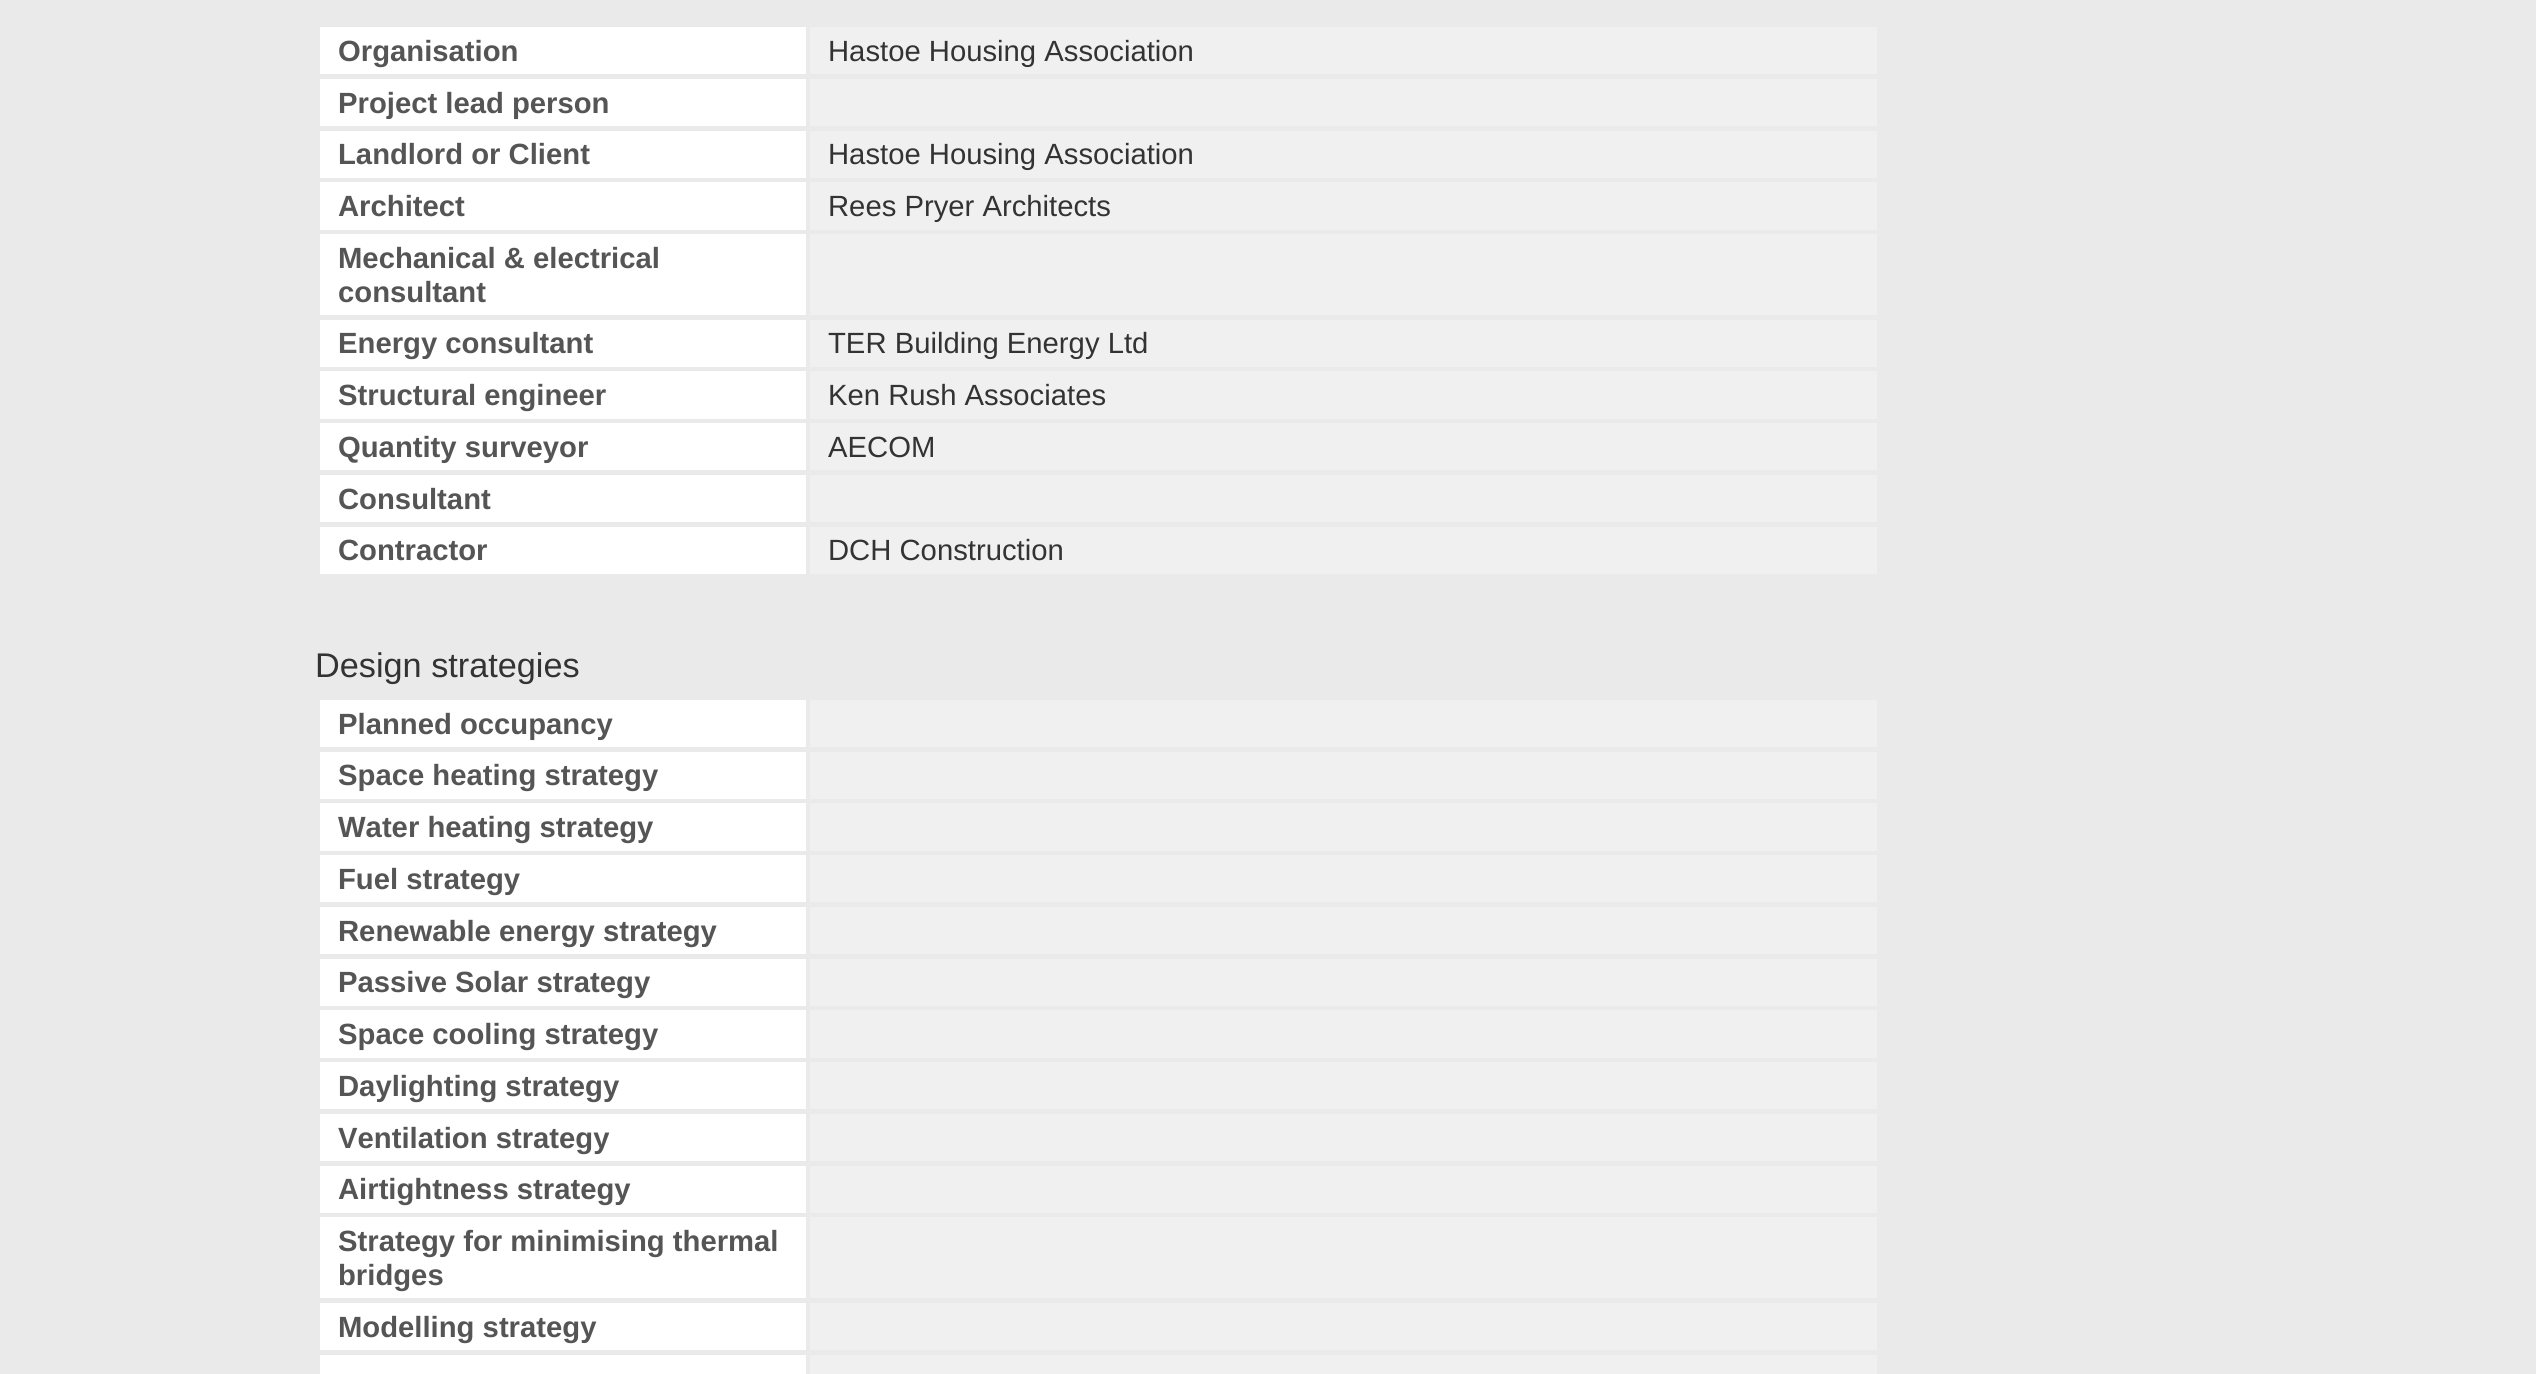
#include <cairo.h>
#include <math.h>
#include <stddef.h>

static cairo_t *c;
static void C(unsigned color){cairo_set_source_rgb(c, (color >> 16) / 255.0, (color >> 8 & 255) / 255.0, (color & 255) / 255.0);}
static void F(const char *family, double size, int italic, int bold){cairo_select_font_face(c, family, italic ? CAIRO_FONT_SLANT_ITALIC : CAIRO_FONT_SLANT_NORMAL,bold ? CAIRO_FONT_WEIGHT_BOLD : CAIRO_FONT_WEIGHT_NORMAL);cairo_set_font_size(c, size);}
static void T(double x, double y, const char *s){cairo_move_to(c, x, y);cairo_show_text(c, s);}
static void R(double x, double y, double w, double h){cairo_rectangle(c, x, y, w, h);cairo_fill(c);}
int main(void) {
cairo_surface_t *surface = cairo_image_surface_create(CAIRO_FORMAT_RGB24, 2536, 1374);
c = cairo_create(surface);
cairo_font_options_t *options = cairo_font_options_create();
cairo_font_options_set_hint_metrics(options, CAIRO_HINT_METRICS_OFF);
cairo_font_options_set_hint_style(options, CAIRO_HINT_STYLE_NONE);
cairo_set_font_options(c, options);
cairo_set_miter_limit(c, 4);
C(0xeaeaea);
cairo_paint(c);
C(0xffffff);
R(320,27,486,47);
F("Liberation Sans",29.25,0,1);
C(0x555555);
T(338,61,"Organisation");
C(0xf0f0f0);
R(810,27,1067,47);
F("Liberation Sans",29.25,0,0);
C(0x333333);
T(828,61,"Hastoe Housing Association");
C(0xffffff);
R(320,79,486,47);
F("Liberation Sans",29.25,0,1);
C(0x555555);
T(338,113,"Project lead person");
C(0xf0f0f0);
R(810,79,1067,47);
C(0xffffff);
R(320,131,486,47);
C(0x555555);
T(338,164,"Landlord or Client");
C(0xf0f0f0);
R(810,131,1067,47);
F("Liberation Sans",29.25,0,0);
C(0x333333);
T(828,164,"Hastoe Housing Association");
C(0xffffff);
R(320,182,486,48);
F("Liberation Sans",29.25,0,1);
C(0x555555);
T(338,216,"Architect");
C(0xf0f0f0);
R(810,182,1067,48);
F("Liberation Sans",29.25,0,0);
C(0x333333);
T(828,216,"Rees Pryer Architects");
C(0xffffff);
R(320,234,486,81);
F("Liberation Sans",29.25,0,1);
C(0x555555);
T(338,268,"Mechanical & electrical");
T(338,302,"consultant");
C(0xf0f0f0);
R(810,234,1067,81);
C(0xffffff);
R(320,320,486,47);
C(0x555555);
T(338,353,"Energy consultant");
C(0xf0f0f0);
R(810,320,1067,47);
F("Liberation Sans",29.25,0,0);
C(0x333333);
T(828,353,"TER Building Energy Ltd");
C(0xffffff);
R(320,371,486,48);
F("Liberation Sans",29.25,0,1);
C(0x555555);
T(338,405,"Structural engineer");
C(0xf0f0f0);
R(810,371,1067,48);
F("Liberation Sans",29.25,0,0);
C(0x333333);
T(828,405,"Ken Rush Associates");
C(0xffffff);
R(320,423,486,47);
F("Liberation Sans",29.25,0,1);
C(0x555555);
T(338,457,"Quantity surveyor");
C(0xf0f0f0);
R(810,423,1067,47);
F("Liberation Sans",29.25,0,0);
C(0x333333);
T(828,457,"AECOM");
C(0xffffff);
R(320,475,486,47);
F("Liberation Sans",29.25,0,1);
C(0x555555);
T(338,509,"Consultant");
C(0xf0f0f0);
R(810,475,1067,47);
C(0xffffff);
R(320,527,486,47);
C(0x555555);
T(338,560,"Contractor");
C(0xf0f0f0);
R(810,527,1067,47);
F("Liberation Sans",29.25,0,0);
C(0x333333);
T(828,560,"DCH Construction");
F("Liberation Sans",34.25,0,0);
T(315,677,"Design strategies");
C(0xffffff);
R(320,700,486,47);
F("Liberation Sans",29.25,0,1);
C(0x555555);
T(338,734,"Planned occupancy");
C(0xf0f0f0);
R(810,700,1067,47);
C(0xffffff);
R(320,752,486,47);
C(0x555555);
T(338,785,"Space heating strategy");
C(0xf0f0f0);
R(810,752,1067,47);
C(0xffffff);
R(320,803,486,48);
C(0x555555);
T(338,837,"Water heating strategy");
C(0xf0f0f0);
R(810,803,1067,48);
C(0xffffff);
R(320,855,486,47);
C(0x555555);
T(338,889,"Fuel strategy");
C(0xf0f0f0);
R(810,855,1067,47);
C(0xffffff);
R(320,907,486,47);
C(0x555555);
T(338,941,"Renewable energy strategy");
C(0xf0f0f0);
R(810,907,1067,47);
C(0xffffff);
R(320,959,486,47);
C(0x555555);
T(338,992,"Passive Solar strategy");
C(0xf0f0f0);
R(810,959,1067,47);
C(0xffffff);
R(320,1010,486,48);
C(0x555555);
T(338,1044,"Space cooling strategy");
C(0xf0f0f0);
R(810,1010,1067,48);
C(0xffffff);
R(320,1062,486,47);
C(0x555555);
T(338,1096,"Daylighting strategy");
C(0xf0f0f0);
R(810,1062,1067,47);
C(0xffffff);
R(320,1114,486,47);
C(0x555555);
T(338,1148,"Ventilation strategy");
C(0xf0f0f0);
R(810,1114,1067,47);
C(0xffffff);
R(320,1166,486,47);
C(0x555555);
T(338,1199,"Airtightness strategy");
C(0xf0f0f0);
R(810,1166,1067,47);
C(0xffffff);
R(320,1217,486,81);
C(0x555555);
T(338,1251,"Strategy for minimising thermal");
T(338,1285,"bridges");
C(0xf0f0f0);
R(810,1217,1067,81);
C(0xffffff);
R(320,1303,486,47);
C(0x555555);
T(338,1337,"Modelling strategy");
C(0xf0f0f0);
R(810,1303,1067,47);
C(0xffffff);
R(320,1355,486,19);
C(0xf0f0f0);
R(810,1355,1067,19);
cairo_surface_write_to_png(surface, "o.png");
cairo_font_options_destroy(options);
cairo_destroy(c);
cairo_surface_destroy(surface);
return 0;
}
